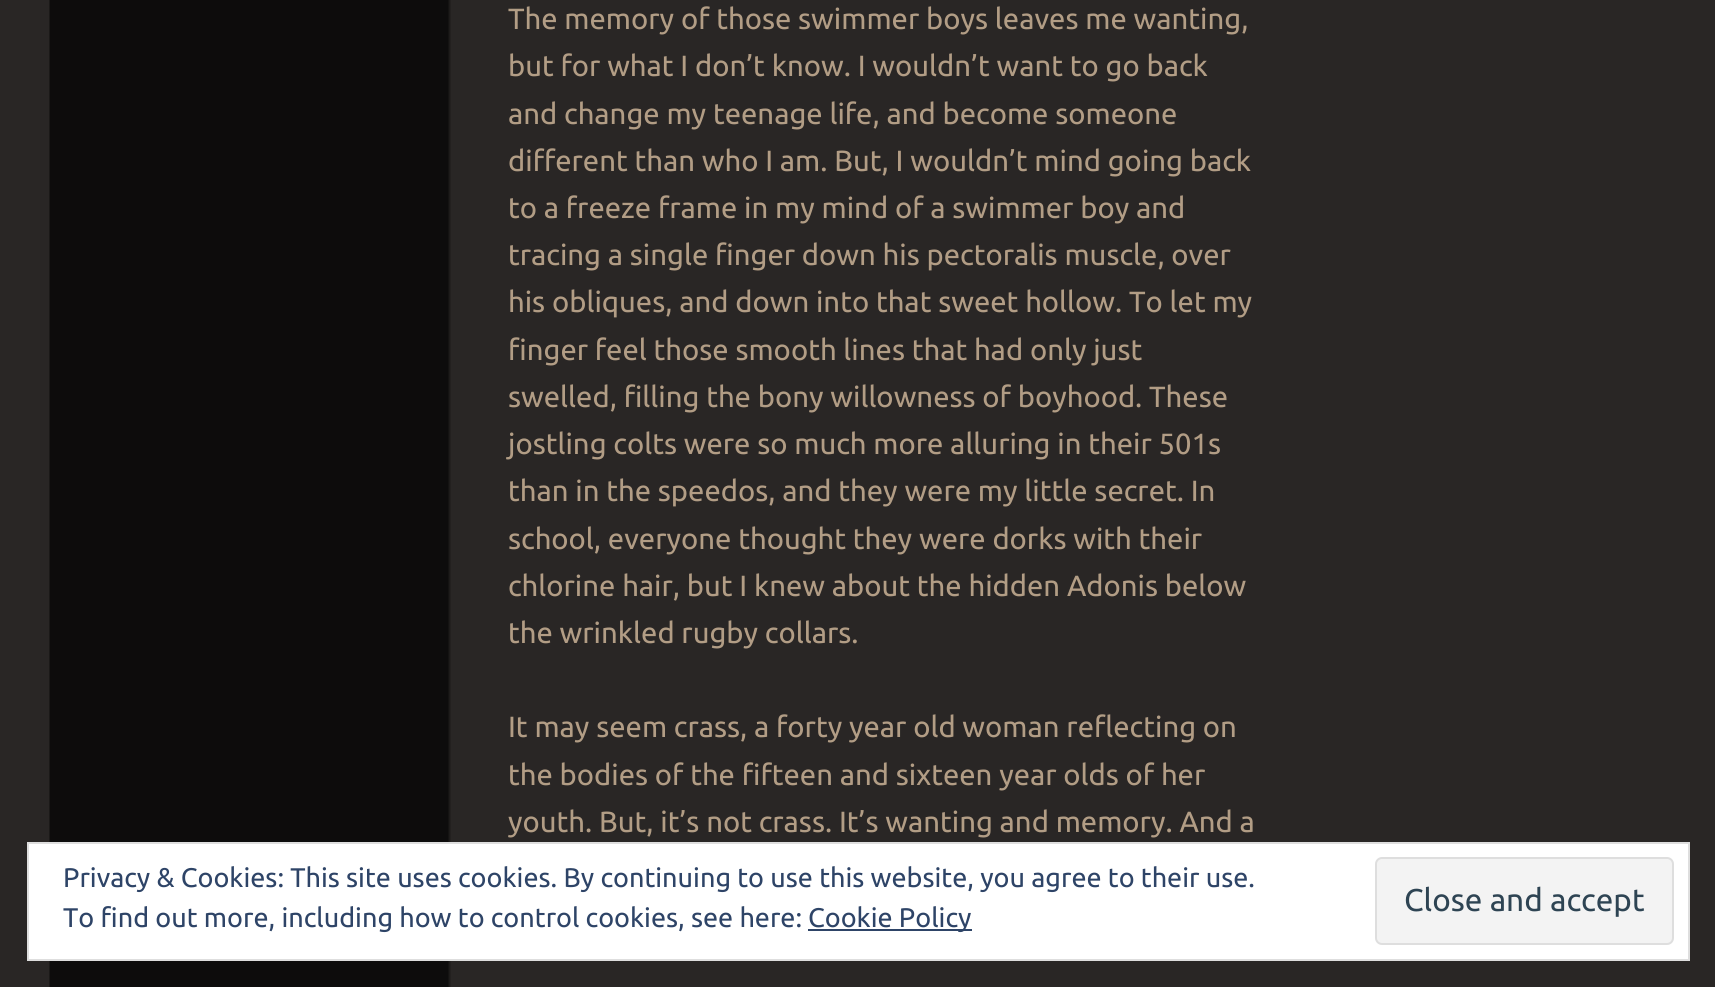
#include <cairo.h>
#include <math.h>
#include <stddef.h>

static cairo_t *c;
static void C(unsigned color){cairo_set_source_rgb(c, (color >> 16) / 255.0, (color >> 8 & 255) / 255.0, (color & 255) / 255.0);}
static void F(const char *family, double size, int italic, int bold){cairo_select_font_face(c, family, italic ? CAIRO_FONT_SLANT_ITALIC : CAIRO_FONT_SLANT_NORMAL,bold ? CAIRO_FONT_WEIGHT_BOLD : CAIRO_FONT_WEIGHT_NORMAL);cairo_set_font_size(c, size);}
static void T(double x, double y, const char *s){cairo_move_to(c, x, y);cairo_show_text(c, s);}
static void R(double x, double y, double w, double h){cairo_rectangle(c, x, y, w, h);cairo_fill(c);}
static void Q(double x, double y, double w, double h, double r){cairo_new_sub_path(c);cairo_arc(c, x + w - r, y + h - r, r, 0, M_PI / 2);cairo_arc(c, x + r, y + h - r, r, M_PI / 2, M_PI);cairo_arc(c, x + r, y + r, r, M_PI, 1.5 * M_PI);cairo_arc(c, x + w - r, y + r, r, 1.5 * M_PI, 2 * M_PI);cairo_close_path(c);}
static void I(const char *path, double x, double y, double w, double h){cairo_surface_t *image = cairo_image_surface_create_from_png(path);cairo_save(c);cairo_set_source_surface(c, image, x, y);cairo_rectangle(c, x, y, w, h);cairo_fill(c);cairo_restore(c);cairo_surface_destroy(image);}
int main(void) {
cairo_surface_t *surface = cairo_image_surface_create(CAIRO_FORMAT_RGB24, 1715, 987);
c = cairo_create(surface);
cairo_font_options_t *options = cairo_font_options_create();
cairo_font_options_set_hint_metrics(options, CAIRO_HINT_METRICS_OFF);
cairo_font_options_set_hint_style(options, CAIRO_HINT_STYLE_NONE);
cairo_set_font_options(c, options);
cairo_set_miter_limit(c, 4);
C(0x292625);
cairo_paint(c);
I("1.png",49,0,402,987);
F("Ubuntu",29.25,0,0);
C(0xb29d85);
T(508,29,"The memory of those swimmer boys leaves me wanting,");
T(508,76,"but for what I don’t know. I wouldn’t want to go back");
T(508,124,"and change my teenage life, and become someone");
T(508,171,"different than who I am. But, I wouldn’t mind going back");
T(508,218,"to a freeze frame in my mind of a swimmer boy and");
T(508,265,"tracing a single finger down his pectoralis muscle, over");
T(508,312,"his obliques, and down into that sweet hollow. To let my");
T(508,360,"finger feel those smooth lines that had only just");
T(508,407,"swelled, filling the bony willowness of boyhood. These");
T(508,454,"jostling colts were so much more alluring in their 501s");
T(508,501,"than in the speedos, and they were my little secret. In");
T(508,549,"school, everyone thought they were dorks with their");
T(508,596,"chlorine hair, but I knew about the hidden Adonis below");
T(508,643,"the wrinkled rugby collars.");
T(508,737,"It may seem crass, a forty year old woman reflecting on");
T(508,785,"the bodies of the fifteen and sixteen year olds of her");
T(508,832,"youth. But, it’s not crass. It’s wanting and memory. And a");
C(0xffffff);
cairo_rectangle(c,28,843,1661,117);
cairo_fill_preserve(c);
C(0xdedede);
cairo_stroke(c);
F("Ubuntu",27,0,0);
C(0x2e4467);
T(63,887,"Privacy & Cookies: This site uses cookies. By continuing to use this website, you agree to their use.");
T(63,927,"To find out more, including how to control cookies, see here:");
R(808,929,164,2);
T(808,927,"Cookie Policy");
C(0xf3f3f3);
Q(1376,858,297,86,6);
cairo_fill_preserve(c);
C(0xdedede);
cairo_stroke(c);
F("Ubuntu",31.5,0,0);
C(0x2e4453);
T(1404,911,"Close and accept");
cairo_surface_write_to_png(surface, "o.png");
cairo_font_options_destroy(options);
cairo_destroy(c);
cairo_surface_destroy(surface);
return 0;
}
